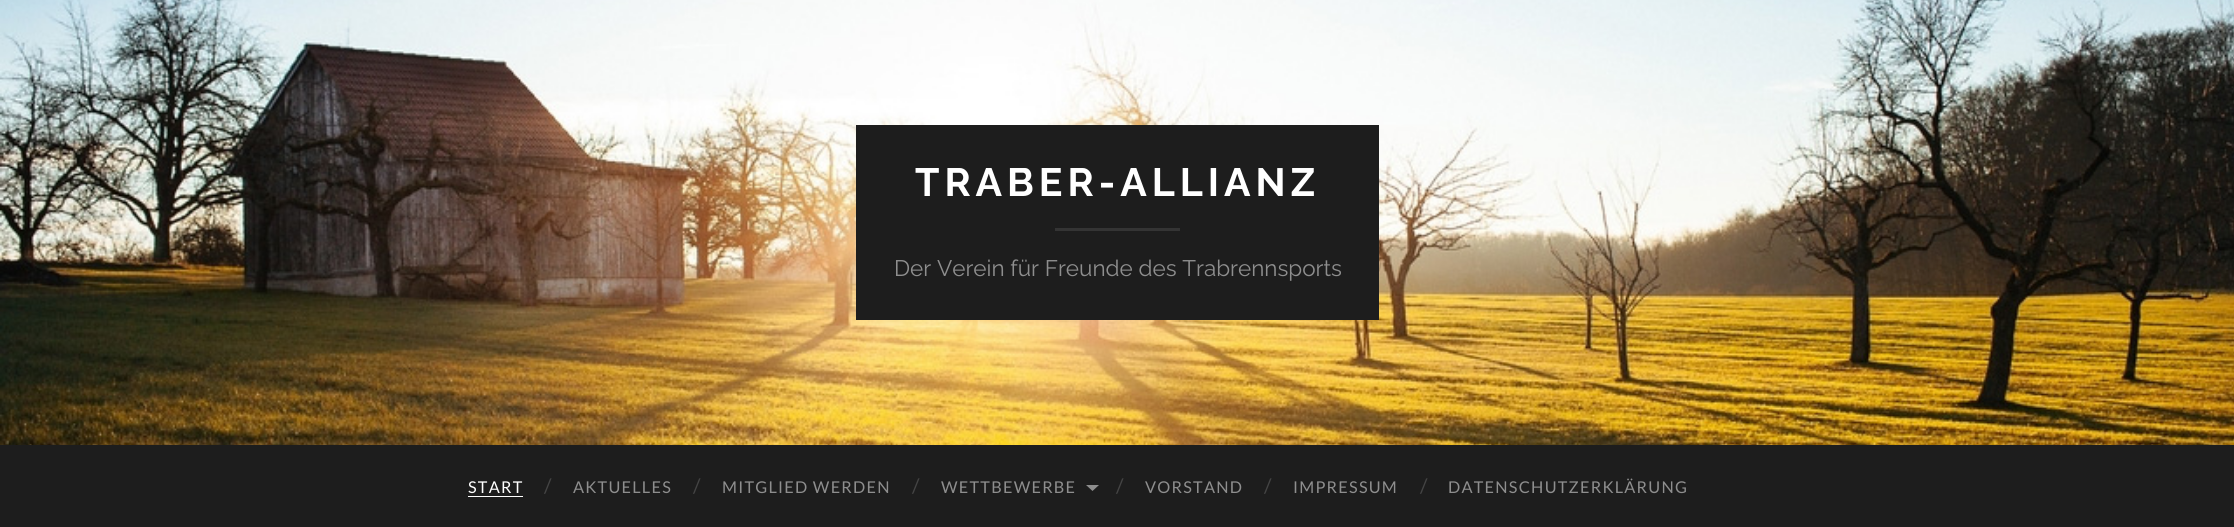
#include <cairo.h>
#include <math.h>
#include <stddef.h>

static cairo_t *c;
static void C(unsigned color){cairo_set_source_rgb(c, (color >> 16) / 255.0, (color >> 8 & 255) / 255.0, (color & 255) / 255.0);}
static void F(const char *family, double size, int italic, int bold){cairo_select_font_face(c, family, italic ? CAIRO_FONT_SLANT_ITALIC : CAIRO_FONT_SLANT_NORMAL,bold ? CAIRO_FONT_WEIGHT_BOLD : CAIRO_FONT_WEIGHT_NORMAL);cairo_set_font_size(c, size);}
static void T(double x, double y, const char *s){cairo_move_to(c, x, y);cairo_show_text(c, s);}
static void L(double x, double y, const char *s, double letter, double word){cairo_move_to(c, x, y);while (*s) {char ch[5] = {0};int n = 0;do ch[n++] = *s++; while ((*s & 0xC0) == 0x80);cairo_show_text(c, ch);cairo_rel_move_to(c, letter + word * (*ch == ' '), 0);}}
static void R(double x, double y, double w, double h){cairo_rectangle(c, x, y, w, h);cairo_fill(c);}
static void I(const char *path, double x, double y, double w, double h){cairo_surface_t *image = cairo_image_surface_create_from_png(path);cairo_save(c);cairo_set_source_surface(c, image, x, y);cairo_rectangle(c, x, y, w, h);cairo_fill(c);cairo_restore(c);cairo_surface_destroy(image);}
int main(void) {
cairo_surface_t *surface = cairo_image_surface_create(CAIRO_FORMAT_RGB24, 2234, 527);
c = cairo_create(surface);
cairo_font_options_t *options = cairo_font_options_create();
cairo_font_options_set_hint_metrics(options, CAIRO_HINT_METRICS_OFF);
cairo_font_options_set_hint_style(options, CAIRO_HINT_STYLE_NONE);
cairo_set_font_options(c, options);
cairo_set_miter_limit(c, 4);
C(0xffffff);
cairo_paint(c);
I("1.png",0,0,2234,445);
C(0x1d1d1d);
R(856,125,523,195);
F("Raleway Thin",39.4,0,0);
C(0xffffff);
L(915,196,"TRABER-ALLIANZ",5,0);
C(0x343434);
R(1055,228,125,3);
F("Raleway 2 Thin",22.5,0,0);
C(0x8e8e8e);
T(894,276,"Der Verein für Freunde des Trabrennsports");
C(0x1d1d1d);
R(0,445,2234,82);
F("Lato",16.25,0,0);
C(0xffffff);
L(468,493,"START",1.25,0);
R(468,496,55,1);
F("Lato",20,0,0);
C(0x444444);
T(544,493,"/");
F("Lato",16.25,0,0);
C(0x8e8e8e);
L(573,493,"AKTUELLES",1.25,0);
F("Lato",20,0,0);
C(0x444444);
T(693,493,"/");
F("Lato",16.25,0,0);
C(0x8e8e8e);
L(722,493,"MITGLIED WERDEN",1.25,0);
F("Lato",20,0,0);
C(0x444444);
T(912,493,"/");
F("Lato",16.25,0,0);
C(0x8e8e8e);
L(941,493,"WETTBEWERBE",1.25,0);
cairo_new_path(c);
cairo_move_to(c,1086,485);
cairo_line_to(c,1099,485);
cairo_line_to(c,1092.5,491);
cairo_close_path(c);
cairo_fill(c);
F("Lato",20,0,0);
C(0x444444);
T(1116,493,"/");
F("Lato",16.25,0,0);
C(0x8e8e8e);
L(1145,493,"VORSTAND",1.25,0);
F("Lato",20,0,0);
C(0x444444);
T(1264,493,"/");
F("Lato",16.25,0,0);
C(0x8e8e8e);
L(1293,493,"IMPRESSUM",1.25,0);
F("Lato",20,0,0);
C(0x444444);
T(1420,493,"/");
F("Lato",16.25,0,0);
C(0x8e8e8e);
L(1448,493,"DATENSCHUTZERKLÄRUNG",1.25,0);
cairo_surface_write_to_png(surface, "o.png");
cairo_font_options_destroy(options);
cairo_destroy(c);
cairo_surface_destroy(surface);
return 0;
}
